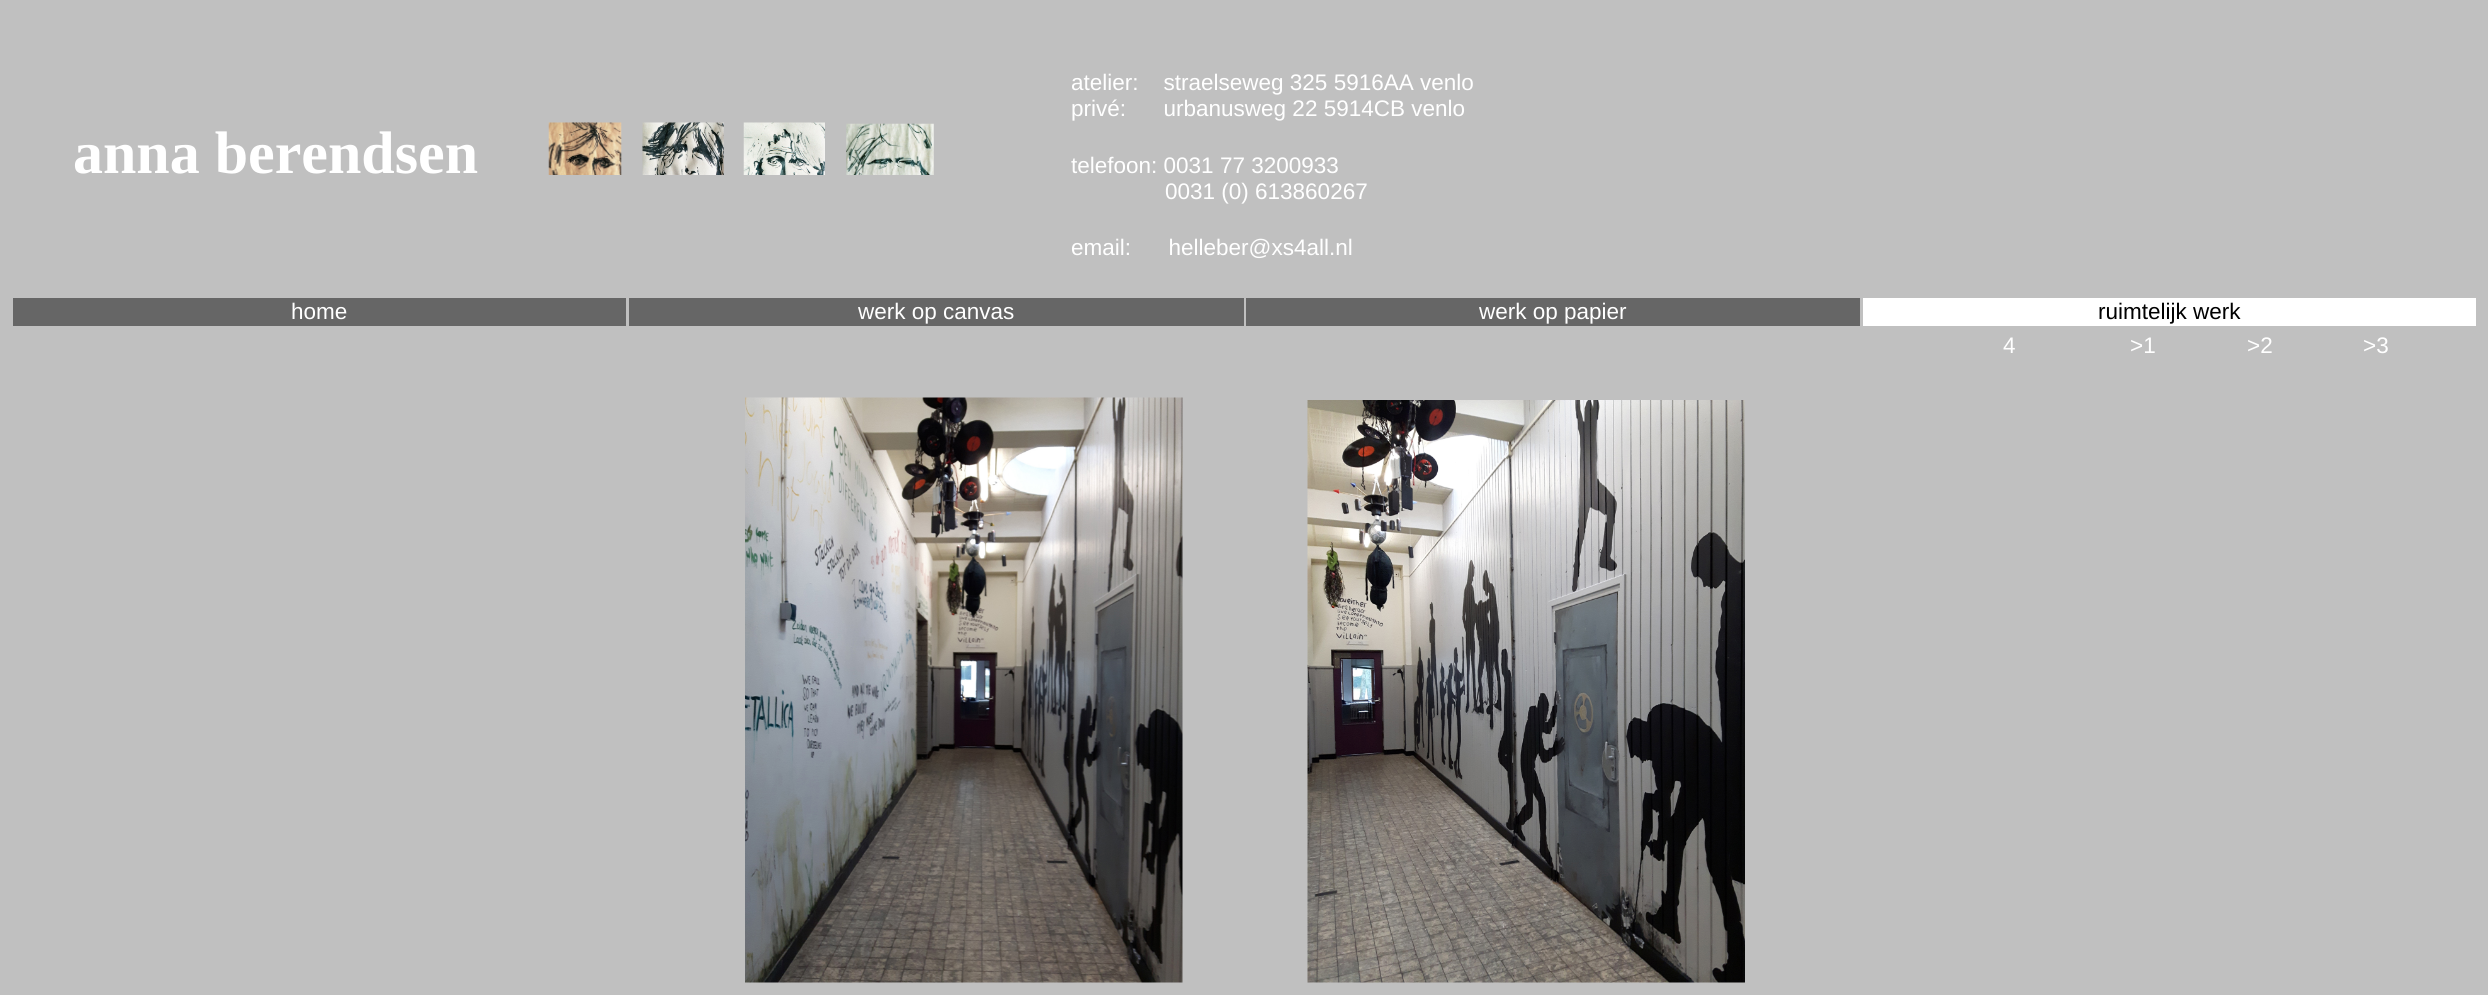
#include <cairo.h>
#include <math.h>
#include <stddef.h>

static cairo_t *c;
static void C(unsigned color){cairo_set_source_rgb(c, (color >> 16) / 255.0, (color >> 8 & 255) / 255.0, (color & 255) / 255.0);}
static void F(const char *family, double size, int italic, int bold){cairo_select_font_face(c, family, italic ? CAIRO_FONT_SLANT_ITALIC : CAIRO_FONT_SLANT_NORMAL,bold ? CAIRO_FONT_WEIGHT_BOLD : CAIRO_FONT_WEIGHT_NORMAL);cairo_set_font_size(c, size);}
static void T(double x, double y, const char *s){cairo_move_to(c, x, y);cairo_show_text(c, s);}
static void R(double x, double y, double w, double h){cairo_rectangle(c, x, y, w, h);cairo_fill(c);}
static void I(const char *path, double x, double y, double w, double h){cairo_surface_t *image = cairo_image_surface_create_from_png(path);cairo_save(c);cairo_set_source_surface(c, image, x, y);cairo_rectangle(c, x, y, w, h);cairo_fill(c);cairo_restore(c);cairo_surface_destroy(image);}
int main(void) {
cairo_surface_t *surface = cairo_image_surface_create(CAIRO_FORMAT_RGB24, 2488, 995);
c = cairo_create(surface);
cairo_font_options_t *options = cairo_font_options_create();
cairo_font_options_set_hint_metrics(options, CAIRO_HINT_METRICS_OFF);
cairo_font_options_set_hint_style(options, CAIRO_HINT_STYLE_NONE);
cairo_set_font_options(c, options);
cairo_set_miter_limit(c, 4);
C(0xc0c0c0);
cairo_paint(c);
F("Liberation Serif",60,0,1);
C(0xffffff);
T(73,173,"anna berendsen");
I("1.png",548,122,74,53);
I("2.png",642,122,82,53);
I("3.png",743,122,82,53);
I("4.png",846,123,88,52);
F("Liberation Sans",22.5,0,0);
T(1071,90,"atelier:    straelseweg 325 5916AA venlo");
T(1071,116,"privé:      urbanusweg 22 5914CB venlo");
T(1071,173,"telefoon: 0031 77 3200933");
T(1165,199,"0031 (0) 613860267");
T(1071,255,"email:      helleber@xs4all.nl");
C(0x666666);
R(13,298,613,28);
C(0xffffff);
T(291,319,"home");
C(0x666666);
R(629,298,615,28);
C(0xffffff);
T(858,319,"werk op canvas");
C(0x666666);
R(1246,298,614,28);
C(0xffffff);
T(1479,319,"werk op papier");
R(1863,298,613,28);
C(0x000000);
T(2098,319,"ruimtelijk werk");
C(0xffffff);
T(2003,353,"4");
T(2130,353,">1");
T(2247,353,">2");
T(2363,353,">3");
I("5.png",745,397,438,586);
I("6.png",1307,400,438,583);
cairo_surface_write_to_png(surface, "o.png");
cairo_font_options_destroy(options);
cairo_destroy(c);
cairo_surface_destroy(surface);
return 0;
}
